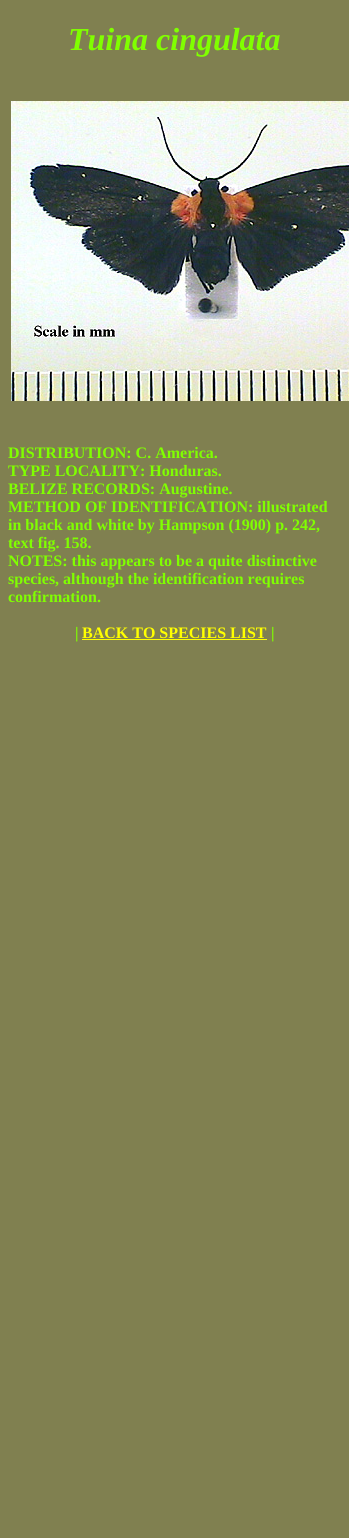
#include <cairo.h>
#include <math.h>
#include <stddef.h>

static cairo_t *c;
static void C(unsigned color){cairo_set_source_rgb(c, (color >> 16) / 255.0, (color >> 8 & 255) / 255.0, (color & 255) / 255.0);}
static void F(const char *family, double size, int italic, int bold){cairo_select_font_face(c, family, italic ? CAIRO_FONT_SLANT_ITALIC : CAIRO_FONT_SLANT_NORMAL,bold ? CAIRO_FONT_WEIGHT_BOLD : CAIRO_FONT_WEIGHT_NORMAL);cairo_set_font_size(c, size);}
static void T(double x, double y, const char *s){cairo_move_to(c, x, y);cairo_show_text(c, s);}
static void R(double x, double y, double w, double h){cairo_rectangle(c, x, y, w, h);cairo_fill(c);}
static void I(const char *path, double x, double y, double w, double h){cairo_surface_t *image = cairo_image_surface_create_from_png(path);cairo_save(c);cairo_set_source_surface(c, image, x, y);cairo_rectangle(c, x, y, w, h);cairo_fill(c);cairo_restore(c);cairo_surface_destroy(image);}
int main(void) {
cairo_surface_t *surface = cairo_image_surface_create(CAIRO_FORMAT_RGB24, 349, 1538);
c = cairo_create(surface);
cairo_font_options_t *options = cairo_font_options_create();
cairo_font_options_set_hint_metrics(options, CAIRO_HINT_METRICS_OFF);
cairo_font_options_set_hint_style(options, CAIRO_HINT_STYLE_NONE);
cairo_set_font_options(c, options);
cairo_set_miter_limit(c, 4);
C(0x808050);
cairo_paint(c);
F("Liberation Serif",32,1,1);
C(0x80ff00);
T(68,50,"Tuina cingulata");
I("1.png",11,101,338,300);
F("Liberation Serif",16,0,1);
T(8,458,"DISTRIBUTION: C. America.");
T(8,476,"TYPE LOCALITY: Honduras.");
T(8,494,"BELIZE RECORDS: Augustine.");
T(8,512,"METHOD OF IDENTIFICATION: illustrated");
T(8,530,"in black and white by Hampson (1900) p. 242,");
T(8,548,"text fig. 158.");
T(8,566,"NOTES: this appears to be a quite distinctive");
T(8,584,"species, although the identification requires");
T(8,602,"confirmation.");
T(75,638,"|");
C(0xffff00);
T(82,638,"BACK TO SPECIES LIST");
R(82,639,185,1);
C(0x80ff00);
T(271,638,"|");
cairo_surface_write_to_png(surface, "o.png");
cairo_font_options_destroy(options);
cairo_destroy(c);
cairo_surface_destroy(surface);
return 0;
}
